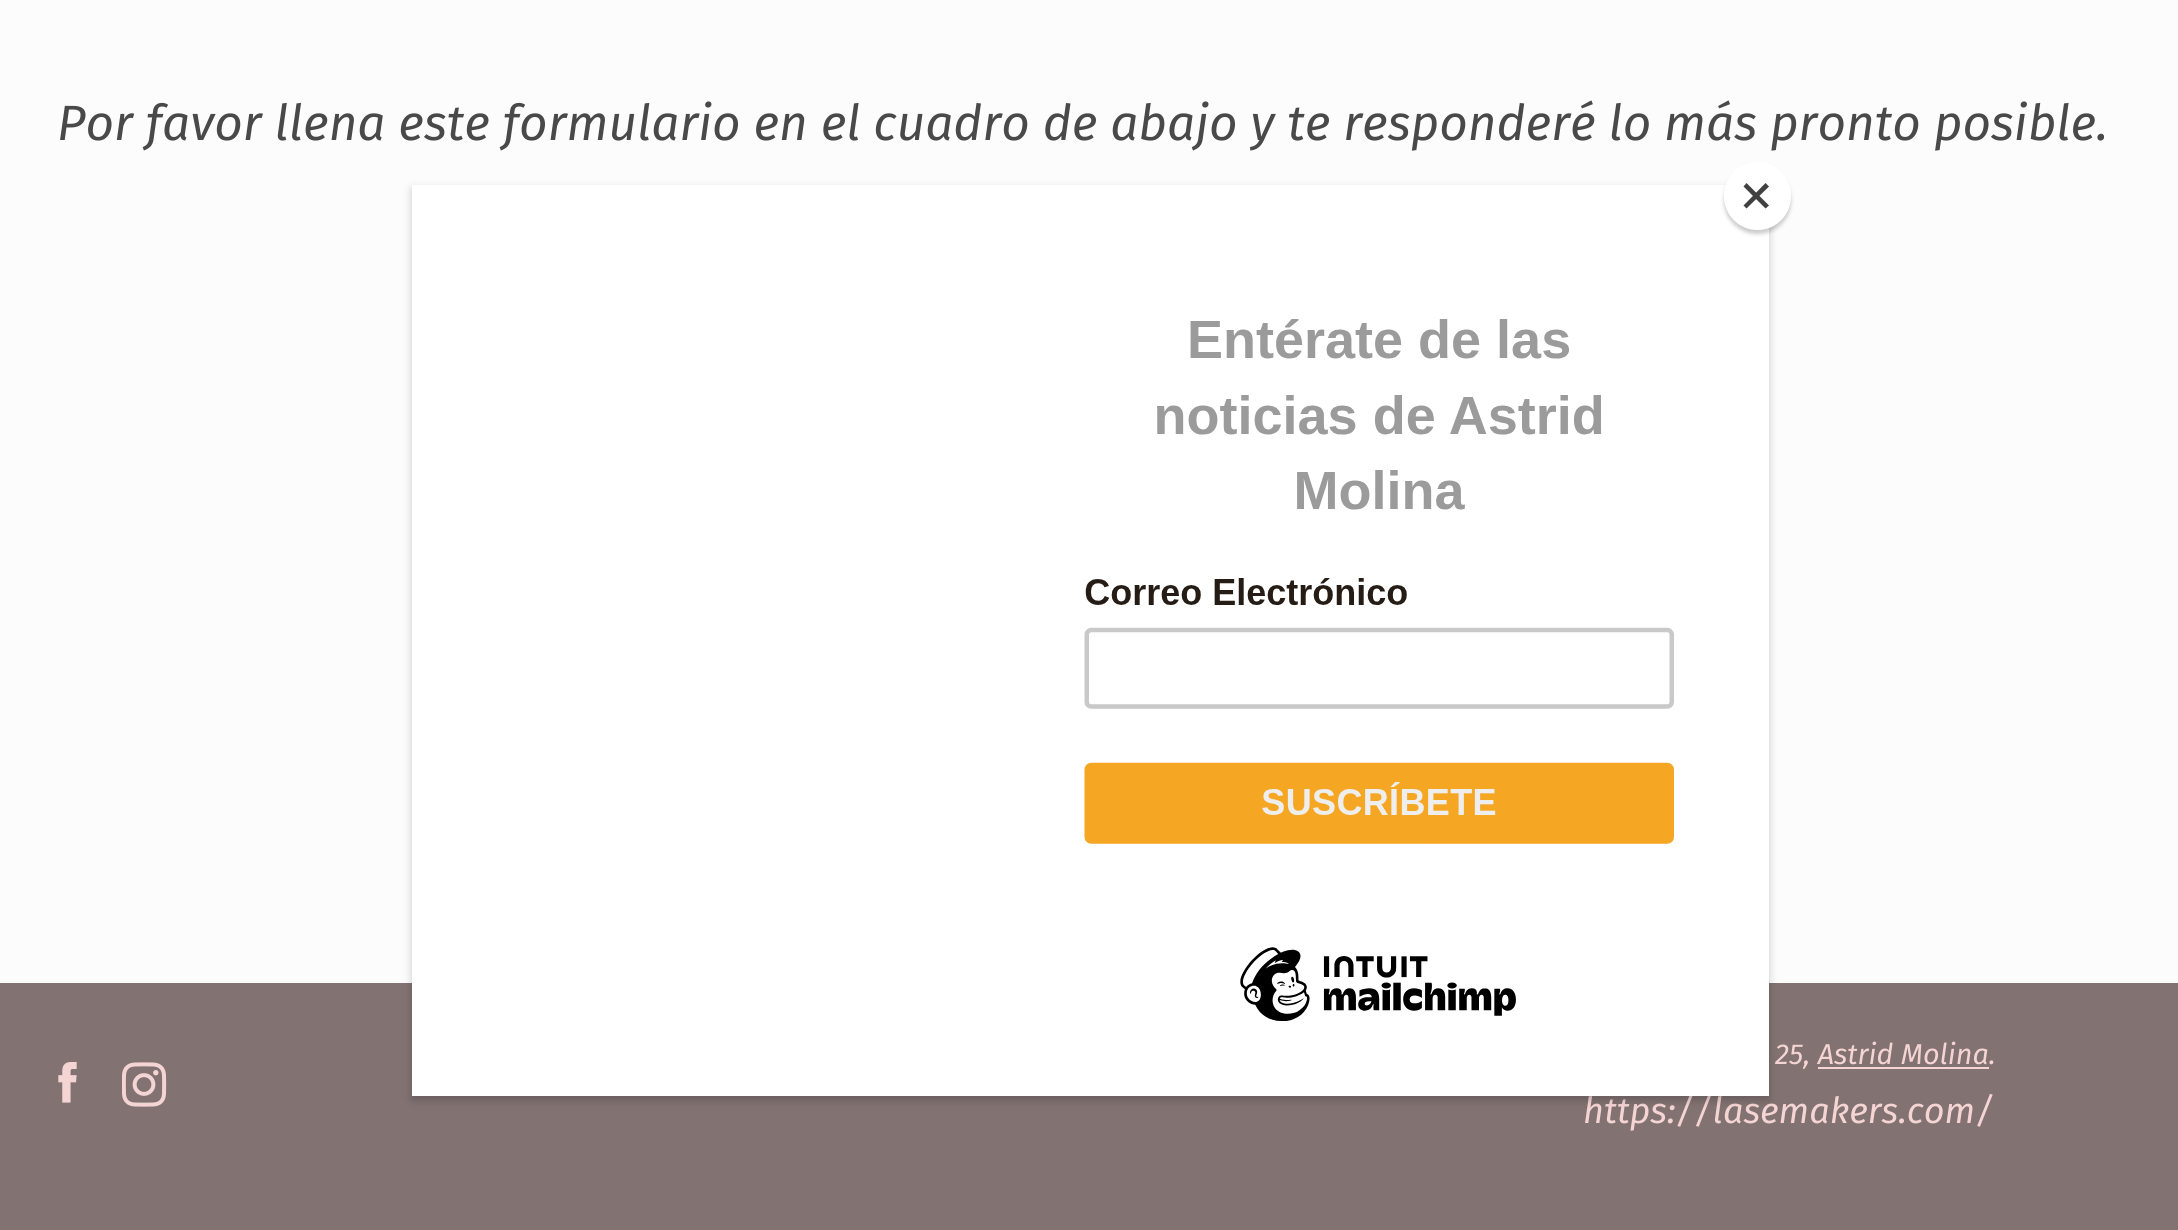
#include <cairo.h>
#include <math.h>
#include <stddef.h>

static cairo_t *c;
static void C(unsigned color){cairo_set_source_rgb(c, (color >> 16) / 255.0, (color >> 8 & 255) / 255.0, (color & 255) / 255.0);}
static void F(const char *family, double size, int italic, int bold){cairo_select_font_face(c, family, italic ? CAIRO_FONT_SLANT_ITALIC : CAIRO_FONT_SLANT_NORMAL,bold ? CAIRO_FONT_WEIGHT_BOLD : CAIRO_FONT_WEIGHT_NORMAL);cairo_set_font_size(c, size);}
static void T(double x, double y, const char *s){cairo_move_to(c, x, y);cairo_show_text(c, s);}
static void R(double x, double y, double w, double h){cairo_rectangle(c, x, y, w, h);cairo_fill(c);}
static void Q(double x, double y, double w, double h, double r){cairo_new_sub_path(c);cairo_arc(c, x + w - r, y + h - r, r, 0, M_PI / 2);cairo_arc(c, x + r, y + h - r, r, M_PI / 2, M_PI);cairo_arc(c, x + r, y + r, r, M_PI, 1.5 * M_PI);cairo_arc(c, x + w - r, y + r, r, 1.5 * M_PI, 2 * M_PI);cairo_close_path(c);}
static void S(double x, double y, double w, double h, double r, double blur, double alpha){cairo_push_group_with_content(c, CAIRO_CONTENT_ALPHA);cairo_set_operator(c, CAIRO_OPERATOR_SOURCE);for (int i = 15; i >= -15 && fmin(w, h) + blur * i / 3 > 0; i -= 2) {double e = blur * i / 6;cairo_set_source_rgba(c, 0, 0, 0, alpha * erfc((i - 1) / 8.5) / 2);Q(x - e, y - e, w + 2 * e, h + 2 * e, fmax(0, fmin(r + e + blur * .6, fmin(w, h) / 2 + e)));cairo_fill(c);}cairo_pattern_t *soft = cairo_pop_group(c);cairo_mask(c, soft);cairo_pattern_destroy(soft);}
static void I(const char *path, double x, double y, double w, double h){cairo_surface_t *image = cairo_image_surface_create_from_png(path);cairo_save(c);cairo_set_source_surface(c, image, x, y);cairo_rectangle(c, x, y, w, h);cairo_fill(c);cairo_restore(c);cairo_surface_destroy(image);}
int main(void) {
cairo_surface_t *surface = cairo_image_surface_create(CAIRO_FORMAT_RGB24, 2178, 1230);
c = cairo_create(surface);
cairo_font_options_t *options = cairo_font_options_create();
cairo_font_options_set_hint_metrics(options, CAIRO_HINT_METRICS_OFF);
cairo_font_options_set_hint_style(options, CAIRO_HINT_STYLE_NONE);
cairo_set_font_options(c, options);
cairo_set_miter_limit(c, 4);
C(0x827272);
cairo_paint(c);
C(0xfcfcfc);
R(0,0,2178,983);
F("Fira Sans",49.5,1,0);
C(0x494949);
T(57,140,"Por favor llena este formulario en el cuadro de abajo y te responderé lo más pronto posible.");
I("1.png",58,1062,19,41);
I("2.png",122,1062,45,45);
F("Fira Sans",28.75,1,0);
C(0xf5d4d4);
T(1775,1064,"25, Astrid Molina.");
R(1818,1067,171,2);
F("Fira Sans",36,1,0);
T(1583,1123,"https://lasemakers.com/");
C(0x000000);
S(412,189,1357,911,0,4.5,.2);
I("3.png",412,185,1357,911);
S(1724,167,67,67,33.5,2,.2);
C(0xffffff);
Q(1724,162,67,68,33.5);
cairo_fill(c);
C(0x414141);
cairo_new_path(c);
cairo_move_to(c,1765.5,183);
cairo_line_to(c,1769,186.5);
cairo_line_to(c,1746.5,208.5);
cairo_line_to(c,1743.5,205.5);
cairo_close_path(c);
cairo_fill(c);
cairo_new_path(c);
cairo_move_to(c,1743.5,186.5);
cairo_line_to(c,1746.5,183);
cairo_line_to(c,1769,205.5);
cairo_line_to(c,1765.5,208.5);
cairo_close_path(c);
cairo_fill(c);
cairo_surface_write_to_png(surface, "o.png");
cairo_font_options_destroy(options);
cairo_destroy(c);
cairo_surface_destroy(surface);
return 0;
}
